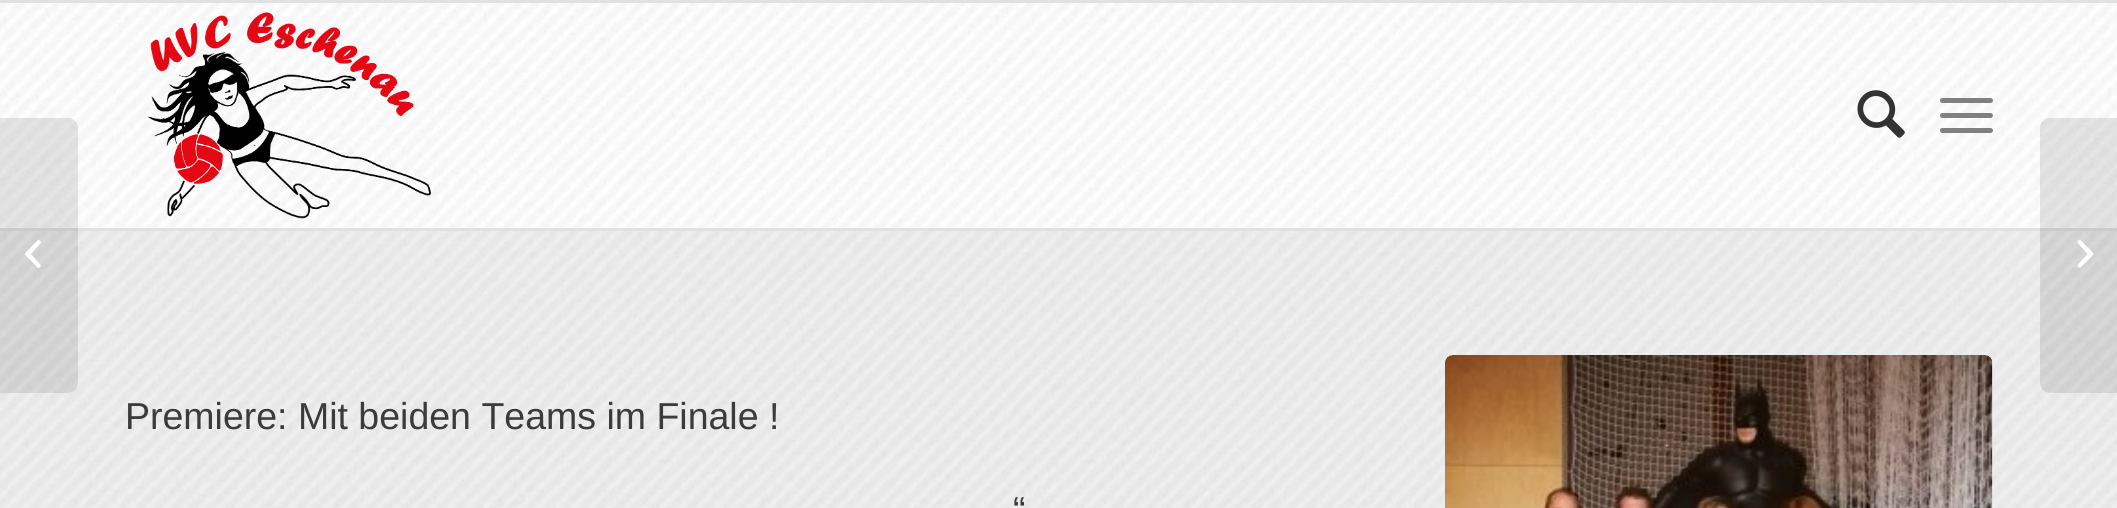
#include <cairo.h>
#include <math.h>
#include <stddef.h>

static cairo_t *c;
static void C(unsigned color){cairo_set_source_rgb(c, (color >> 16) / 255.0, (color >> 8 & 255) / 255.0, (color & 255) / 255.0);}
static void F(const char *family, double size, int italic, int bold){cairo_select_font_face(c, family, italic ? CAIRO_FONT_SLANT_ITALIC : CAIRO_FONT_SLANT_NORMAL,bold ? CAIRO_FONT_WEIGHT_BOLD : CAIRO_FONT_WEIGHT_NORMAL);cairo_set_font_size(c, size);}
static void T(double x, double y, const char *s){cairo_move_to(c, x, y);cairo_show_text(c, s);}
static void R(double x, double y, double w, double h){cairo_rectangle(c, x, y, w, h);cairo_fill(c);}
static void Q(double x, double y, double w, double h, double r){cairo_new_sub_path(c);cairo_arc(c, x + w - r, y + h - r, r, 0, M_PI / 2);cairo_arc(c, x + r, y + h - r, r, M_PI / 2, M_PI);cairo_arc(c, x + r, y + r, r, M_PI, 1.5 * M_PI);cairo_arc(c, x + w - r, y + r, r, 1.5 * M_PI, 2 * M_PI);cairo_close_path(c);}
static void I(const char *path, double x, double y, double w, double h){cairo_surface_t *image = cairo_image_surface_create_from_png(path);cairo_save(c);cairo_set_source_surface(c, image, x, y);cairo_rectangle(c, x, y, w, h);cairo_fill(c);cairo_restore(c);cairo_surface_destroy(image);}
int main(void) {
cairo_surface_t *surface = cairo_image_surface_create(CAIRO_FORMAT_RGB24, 2117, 508);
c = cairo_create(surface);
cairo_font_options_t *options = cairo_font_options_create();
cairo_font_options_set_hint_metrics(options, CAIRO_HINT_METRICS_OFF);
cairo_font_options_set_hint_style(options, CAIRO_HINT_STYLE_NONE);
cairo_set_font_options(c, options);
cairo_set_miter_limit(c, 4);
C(0xefefef);
cairo_paint(c);
C(0xe1e1e1);
R(0,0,2117,3);
R(0,228,2117,3);
C(0xffffff);
R(0,3,2117,225);
I("3.png",0,3,2117,225);
I("1.png",148,12,283,207);
I("2.png",1857,90,48,48);
C(0x808080);
Q(1940,113,53,5,2.5);
cairo_fill(c);
Q(1940,98,53,5,2.5);
cairo_fill(c);
Q(1940,128,53,5,2.5);
cairo_fill(c);
I("6.png",0,231,2117,277);
cairo_set_source_rgba(c,0,0,0,0.1);
cairo_new_path(c);
cairo_move_to(c,0,118);
cairo_line_to(c,68,118);
cairo_curve_to(c,73.5,118,78,122.5,78,128);
cairo_line_to(c,78,383);
cairo_curve_to(c,78,388.5,73.5,393,68,393);
cairo_line_to(c,0,393);
cairo_close_path(c);
cairo_fill(c);
I("4.png",25,240,16,28);
cairo_new_path(c);
cairo_move_to(c,2050,118);
cairo_line_to(c,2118,118);
cairo_line_to(c,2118,393);
cairo_line_to(c,2050,393);
cairo_curve_to(c,2044.5,393,2040,388.5,2040,383);
cairo_line_to(c,2040,128);
cairo_curve_to(c,2040,122.5,2044.5,118,2050,118);
cairo_close_path(c);
cairo_fill(c);
I("5.png",2077,240,17,28);
F("Arimo",37.5,0,0);
C(0x3b3b3b);
T(125,429,"Premiere: Mit beiden Teams im Finale !");
T(1013,523,"“");
I("7.png",1445,355,548,153);
cairo_surface_write_to_png(surface, "o.png");
cairo_font_options_destroy(options);
cairo_destroy(c);
cairo_surface_destroy(surface);
return 0;
}
